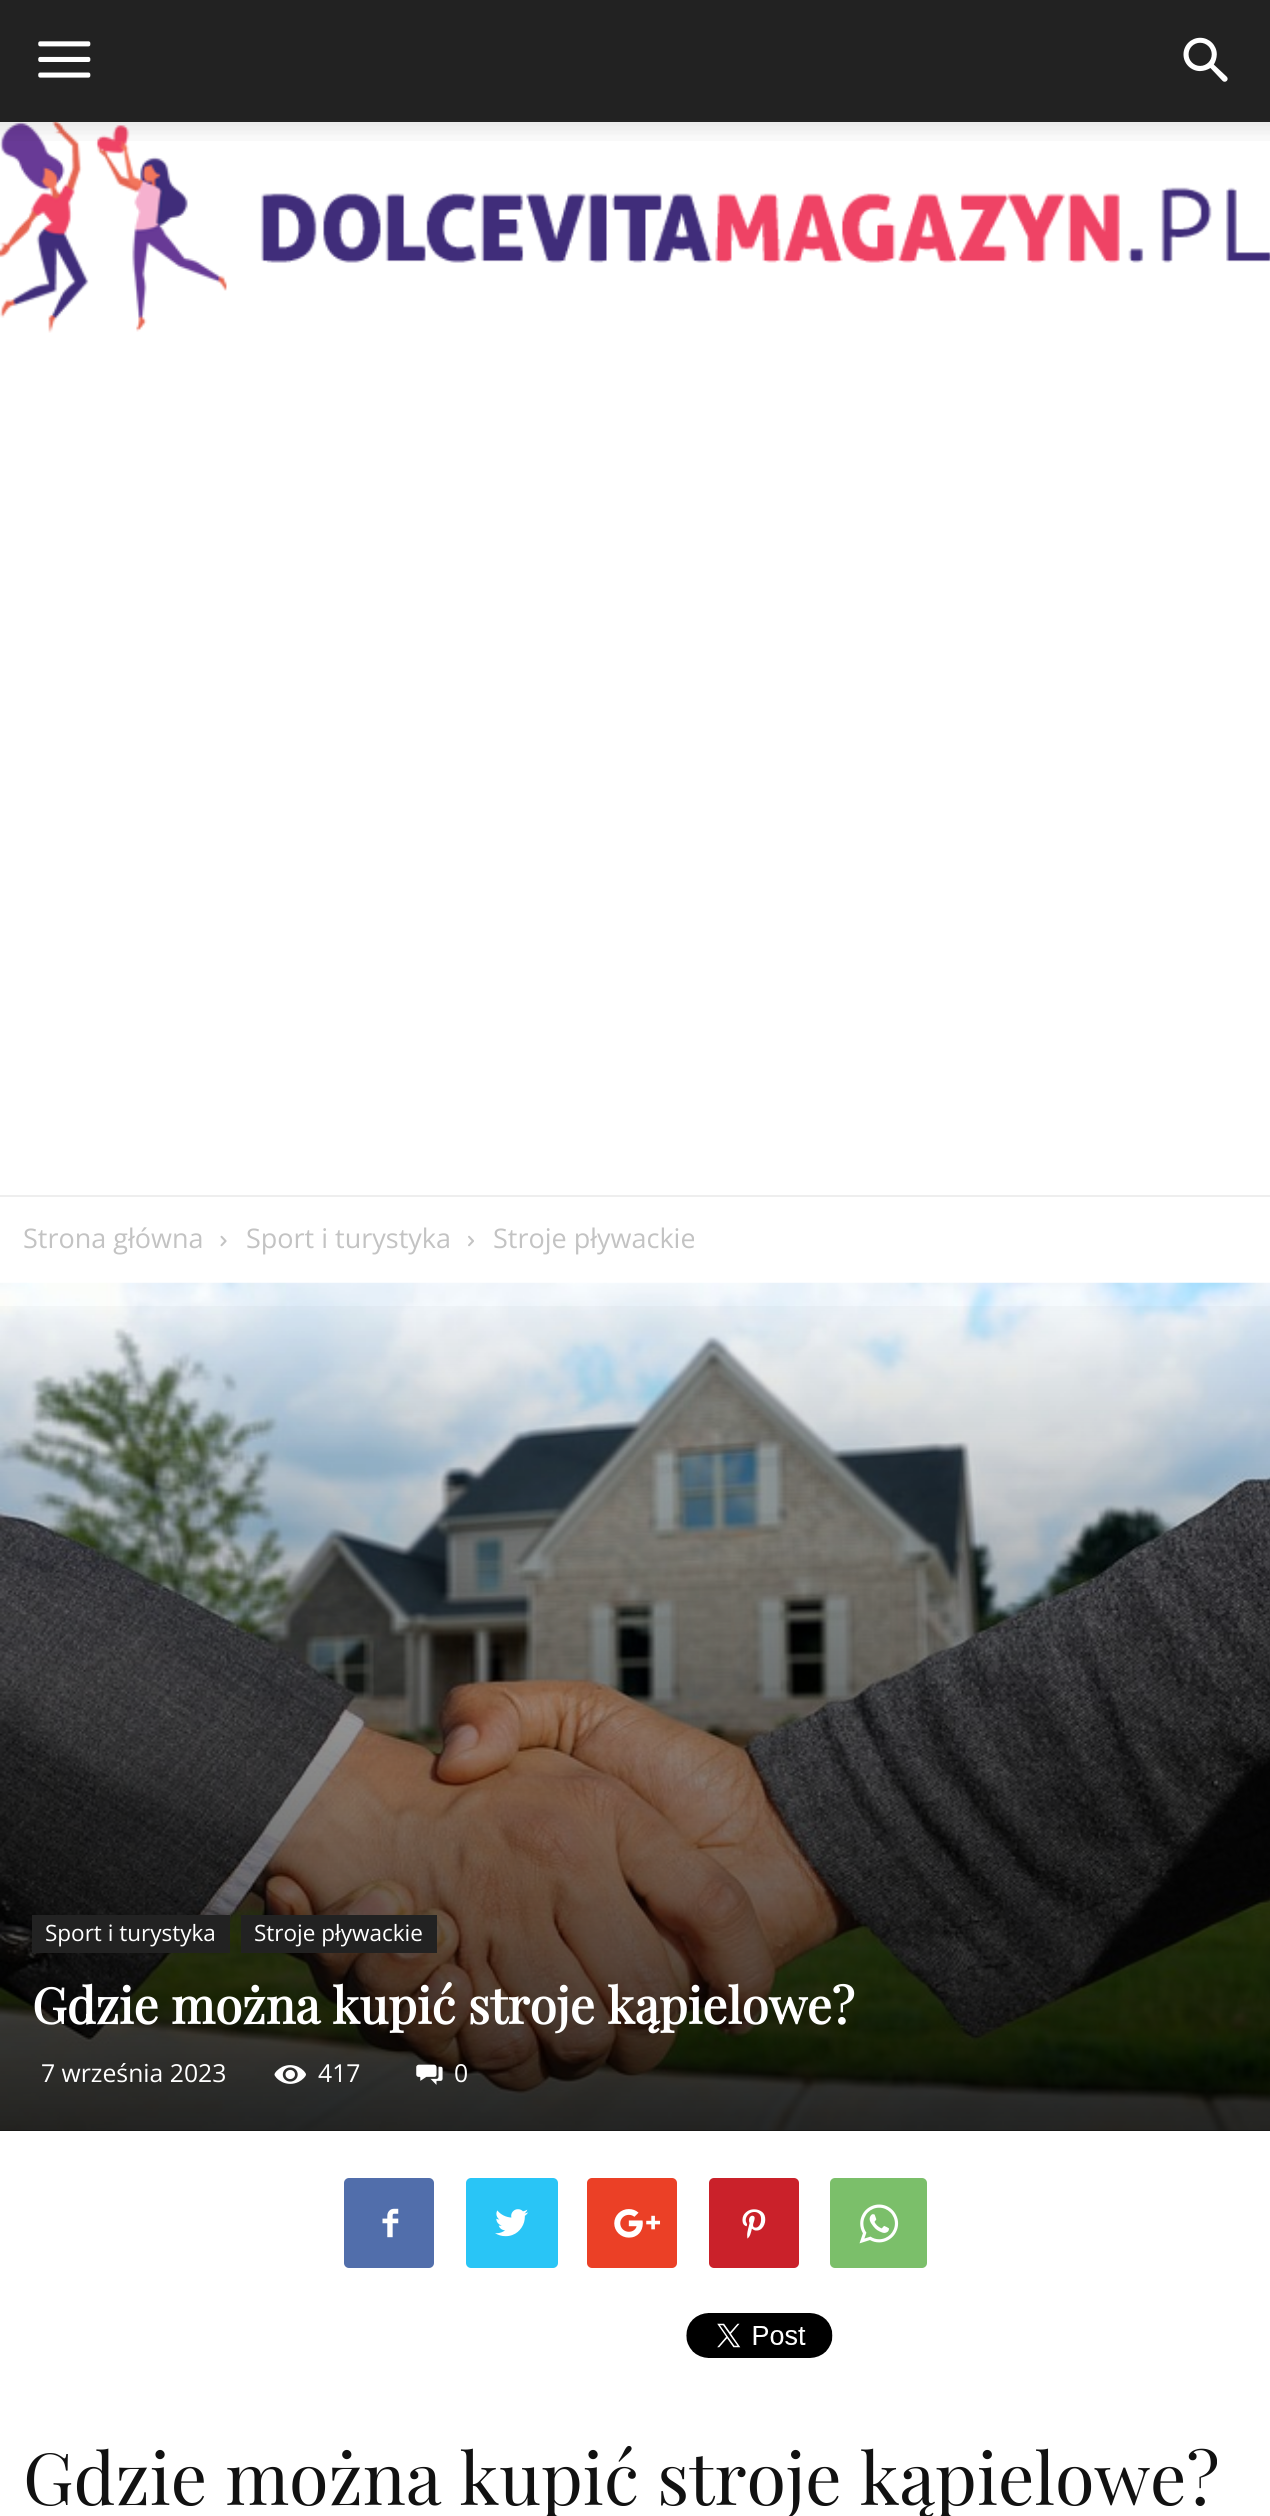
#include <cairo.h>
#include <math.h>
#include <stddef.h>

static cairo_t *c;
static void C(unsigned color){cairo_set_source_rgb(c, (color >> 16) / 255.0, (color >> 8 & 255) / 255.0, (color & 255) / 255.0);}
static void F(const char *family, double size, int italic, int bold){cairo_select_font_face(c, family, italic ? CAIRO_FONT_SLANT_ITALIC : CAIRO_FONT_SLANT_NORMAL,bold ? CAIRO_FONT_WEIGHT_BOLD : CAIRO_FONT_WEIGHT_NORMAL);cairo_set_font_size(c, size);}
static void T(double x, double y, const char *s){cairo_move_to(c, x, y);cairo_show_text(c, s);}
static void R(double x, double y, double w, double h){cairo_rectangle(c, x, y, w, h);cairo_fill(c);}
static void Q(double x, double y, double w, double h, double r){cairo_new_sub_path(c);cairo_arc(c, x + w - r, y + h - r, r, 0, M_PI / 2);cairo_arc(c, x + r, y + h - r, r, M_PI / 2, M_PI);cairo_arc(c, x + r, y + r, r, M_PI, 1.5 * M_PI);cairo_arc(c, x + w - r, y + r, r, 1.5 * M_PI, 2 * M_PI);cairo_close_path(c);}
static void I(const char *path, double x, double y, double w, double h){cairo_surface_t *image = cairo_image_surface_create_from_png(path);cairo_save(c);cairo_set_source_surface(c, image, x, y);cairo_rectangle(c, x, y, w, h);cairo_fill(c);cairo_restore(c);cairo_surface_destroy(image);}
int main(void) {
cairo_surface_t *surface = cairo_image_surface_create(CAIRO_FORMAT_RGB24, 1270, 2516);
c = cairo_create(surface);
cairo_font_options_t *options = cairo_font_options_create();
cairo_font_options_set_hint_metrics(options, CAIRO_HINT_METRICS_OFF);
cairo_font_options_set_hint_style(options, CAIRO_HINT_STYLE_NONE);
cairo_set_font_options(c, options);
cairo_set_miter_limit(c, 4);
cairo_pattern_t *gradient;
C(0xffffff);
cairo_paint(c);
C(0x222222);
R(0,0,1270,122);
I("1.png",38,41,53,37);
I("2.png",1183,37,45,45);
I("4.png",0,122,1270,211);
I("3.png",0,122,1270,19);
C(0xeeeeee);
R(0,1195,1270,2);
F("Open Sans",27,0,0);
C(0xc3c3c3);
T(23,1248,"Strona główna");
I("5.png",220,1235,7,12);
T(246,1248,"Sport i turystyka");
I("6.png",468,1235,6,12);
T(493,1248,"Stroje pływackie");
C(0x444444);
R(0,2130,1270,1);
I("7.png",0,1282,1270,849);
gradient = cairo_pattern_create_linear(636,1283,636,2131);
cairo_pattern_add_color_stop_rgba(gradient,0,0,0,0,0);
cairo_pattern_add_color_stop_rgba(gradient,1,0,0,0,.8);
cairo_set_source(c,gradient);
cairo_pattern_destroy(gradient);
R(0,1306,1270,825);
C(0x222222);
R(32,1915,198,38);
F("Open Sans",22.5,0,0);
C(0xffffff);
T(45,1941,"Sport i turystyka");
C(0x222222);
R(241,1915,196,38);
C(0xffffff);
T(254,1941,"Stroje pływackie");
F("Playfair Display",49.5,0,1);
T(32,2024,"Gdzie można kupić stroje kąpielowe?");
F("Open Sans",24.75,0,0);
T(41,2082,"7 września 2023");
I("8.png",274,2065,32,19);
T(318,2082,"417");
I("9.png",416,2064,27,21);
T(454,2082,"0");
C(0x516eab);
Q(344,2178,90,90,5);
cairo_fill(c);
I("10.png",382,2208,17,30);
C(0x29c5f6);
Q(466,2178,92,90,5);
cairo_fill(c);
I("11.png",495,2209,34,28);
C(0xeb4026);
Q(587,2178,90,90,5);
cairo_fill(c);
I("12.png",614,2209,47,29);
C(0xca212a);
Q(709,2178,90,90,5);
cairo_fill(c);
I("13.png",742,2209,24,30);
C(0x7bbf6a);
Q(830,2178,97,90,5);
cairo_fill(c);
I("14.png",859,2204,40,40);
I("15.png",686,2313,147,45);
F("Playfair Display",72,0,0);
C(0x111111);
T(23,2505,"Gdzie można kupić stroje kąpielowe?");
cairo_surface_write_to_png(surface, "o.png");
cairo_font_options_destroy(options);
cairo_destroy(c);
cairo_surface_destroy(surface);
return 0;
}
